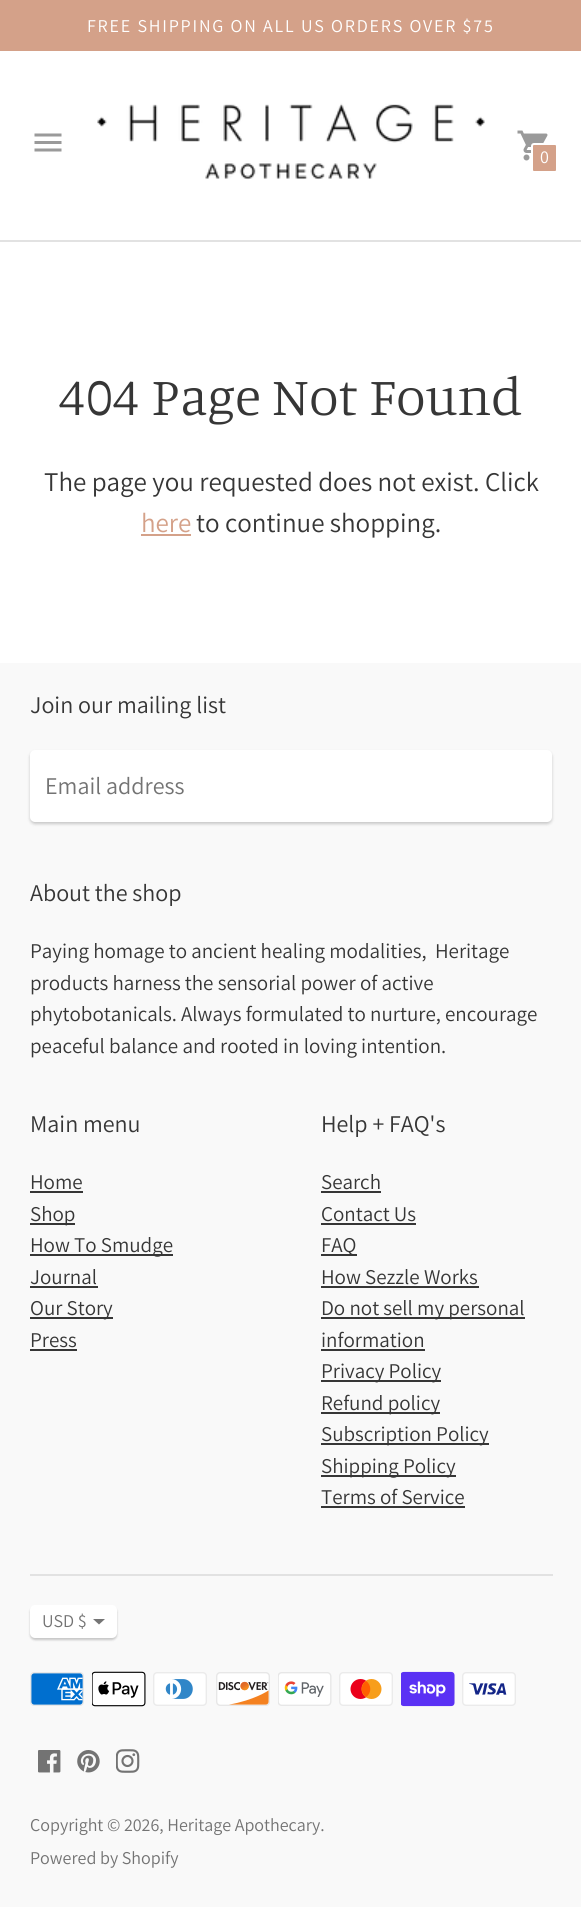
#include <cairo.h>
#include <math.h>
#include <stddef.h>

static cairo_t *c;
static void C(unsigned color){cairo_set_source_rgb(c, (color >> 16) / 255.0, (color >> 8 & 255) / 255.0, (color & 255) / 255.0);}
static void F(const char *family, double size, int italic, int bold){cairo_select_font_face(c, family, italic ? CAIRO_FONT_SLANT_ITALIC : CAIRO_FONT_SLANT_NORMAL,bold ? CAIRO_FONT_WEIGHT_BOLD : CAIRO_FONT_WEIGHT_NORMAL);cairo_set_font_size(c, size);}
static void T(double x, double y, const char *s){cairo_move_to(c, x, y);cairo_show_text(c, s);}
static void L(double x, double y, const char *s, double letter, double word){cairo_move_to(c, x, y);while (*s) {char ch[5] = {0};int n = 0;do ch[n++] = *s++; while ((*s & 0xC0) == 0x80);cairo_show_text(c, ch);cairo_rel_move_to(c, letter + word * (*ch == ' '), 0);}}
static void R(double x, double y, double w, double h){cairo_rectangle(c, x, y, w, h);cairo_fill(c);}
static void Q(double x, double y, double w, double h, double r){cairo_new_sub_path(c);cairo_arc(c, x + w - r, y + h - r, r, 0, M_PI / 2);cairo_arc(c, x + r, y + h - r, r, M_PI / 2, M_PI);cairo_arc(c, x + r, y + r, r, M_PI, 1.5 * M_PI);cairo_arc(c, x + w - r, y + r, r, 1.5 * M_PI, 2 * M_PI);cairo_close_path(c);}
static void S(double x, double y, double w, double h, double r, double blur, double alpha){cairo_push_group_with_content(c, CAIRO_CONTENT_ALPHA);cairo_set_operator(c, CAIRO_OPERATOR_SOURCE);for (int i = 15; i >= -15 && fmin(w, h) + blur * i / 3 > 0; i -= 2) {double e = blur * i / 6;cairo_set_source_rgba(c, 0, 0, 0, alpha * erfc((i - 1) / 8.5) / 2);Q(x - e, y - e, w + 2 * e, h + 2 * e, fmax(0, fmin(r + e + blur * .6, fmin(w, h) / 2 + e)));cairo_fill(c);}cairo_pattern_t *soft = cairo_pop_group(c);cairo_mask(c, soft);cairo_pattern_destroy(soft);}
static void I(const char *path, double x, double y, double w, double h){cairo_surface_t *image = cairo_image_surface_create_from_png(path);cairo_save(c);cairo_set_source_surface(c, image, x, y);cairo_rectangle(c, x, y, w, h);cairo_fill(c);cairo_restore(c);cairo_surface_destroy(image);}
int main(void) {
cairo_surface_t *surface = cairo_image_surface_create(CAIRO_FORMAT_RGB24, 581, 1907);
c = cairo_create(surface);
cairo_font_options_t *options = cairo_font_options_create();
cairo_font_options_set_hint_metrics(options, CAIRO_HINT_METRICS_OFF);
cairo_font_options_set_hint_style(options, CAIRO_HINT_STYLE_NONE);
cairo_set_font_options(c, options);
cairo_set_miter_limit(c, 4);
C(0xffffff);
cairo_paint(c);
C(0xd4a189);
R(0,0,581,51);
F("Assistant",18,0,0);
C(0xffffff);
L(87,32,"FREE SHIPPING ON ALL US ORDERS OVER $75",1.8,0);
C(0xe2e2e2);
R(0,240,581,2);
I("1.png",34,133,28,19);
I("2.png",97,103,388,77);
I("3.png",517,130,31,31);
C(0xd4a189);
Q(532,144,25,28,2);
cairo_fill_preserve(c);
C(0xffffff);
cairo_stroke(c);
T(540,163,"0");
F("Manuale Light",54,0,0);
C(0x363636);
T(59,415,"404 Page Not Found");
F("Assistant",27,0,0);
T(44,491,"The page you requested does not exist. Click");
C(0xd4a189);
T(141,532,"here");
R(141,534,50,2);
C(0x363636);
T(196,532,"to continue shopping.");
C(0xf9f9f9);
R(0,663,581,1244);
F("Assistant",24,0,0);
C(0x363636);
T(30,713,"Join our mailing list");
C(0x000000);
S(30,752,522,72,5,1.5,.2);
C(0xffffff);
Q(30,750,522,72,5);
cairo_fill(c);
C(0x737373);
T(45,794,"Email address");
C(0x363636);
T(30,901,"About the shop");
F("Assistant",21,0,0);
T(30,958,"Paying homage to ancient healing modalities,  Heritage");
T(30,990,"products harness the sensorial power of active");
T(30,1021,"phytobotanicals. Always formulated to nurture, encourage");
T(30,1053,"peaceful balance and rooted in loving intention.");
F("Assistant",24,0,0);
T(30,1132,"Main menu");
F("Assistant",21,0,0);
T(30,1189,"Home");
R(30,1191,53,2);
R(30,1223,45,2);
T(30,1221,"Shop");
R(30,1254,143,2);
T(30,1252,"How To Smudge");
T(30,1284,"Journal");
R(30,1286,68,2);
R(30,1317,83,2);
T(30,1315,"Our Story");
T(30,1347,"Press");
R(30,1349,47,2);
F("Assistant",24,0,0);
T(321,1132,"Help + FAQ's");
F("Assistant",21,0,0);
T(321,1189,"Search");
R(321,1191,60,2);
T(321,1221,"Contact Us");
R(321,1223,95,2);
R(321,1254,36,2);
T(321,1252,"FAQ");
T(321,1284,"How Sezzle Works");
R(321,1286,158,2);
R(321,1317,204,2);
T(321,1315,"Do not sell my personal");
T(321,1347,"information");
R(321,1349,104,2);
R(321,1380,120,2);
T(321,1378,"Privacy Policy");
R(321,1412,119,2);
T(321,1410,"Refund policy");
R(321,1443,168,2);
T(321,1441,"Subscription Policy");
R(321,1475,135,2);
T(321,1473,"Shipping Policy");
T(321,1504,"Terms of Service");
R(321,1506,144,2);
C(0xe2e2e2);
R(30,1574,523,2);
C(0x000000);
S(30,1607,87,33,5,1,.2);
C(0xffffff);
Q(30,1605,87,33,5);
cairo_fill(c);
F("Assistant",18,0,0);
C(0x737373);
T(42,1627,"USD $");
C(0x757575);
cairo_new_path(c);
cairo_move_to(c,99,1624.5);
cairo_line_to(c,105,1619);
cairo_line_to(c,93,1619);
cairo_close_path(c);
cairo_fill(c);
I("4.png",30,1672,54,34);
I("5.png",92,1671,54,36);
I("6.png",153,1672,54,34);
I("7.png",216,1672,54,34);
I("8.png",278,1672,54,34);
I("9.png",339,1672,54,34);
I("10.png",401,1671,54,36);
I("11.png",462,1672,54,34);
I("12.png",38,1750,23,23);
I("13.png",77,1750,23,23);
I("14.png",116,1749,24,24);
C(0x737373);
T(30,1831,"Copyright © 2026, Heritage Apothecary.");
T(30,1864,"Powered by Shopify");
cairo_surface_write_to_png(surface, "o.png");
cairo_font_options_destroy(options);
cairo_destroy(c);
cairo_surface_destroy(surface);
return 0;
}
